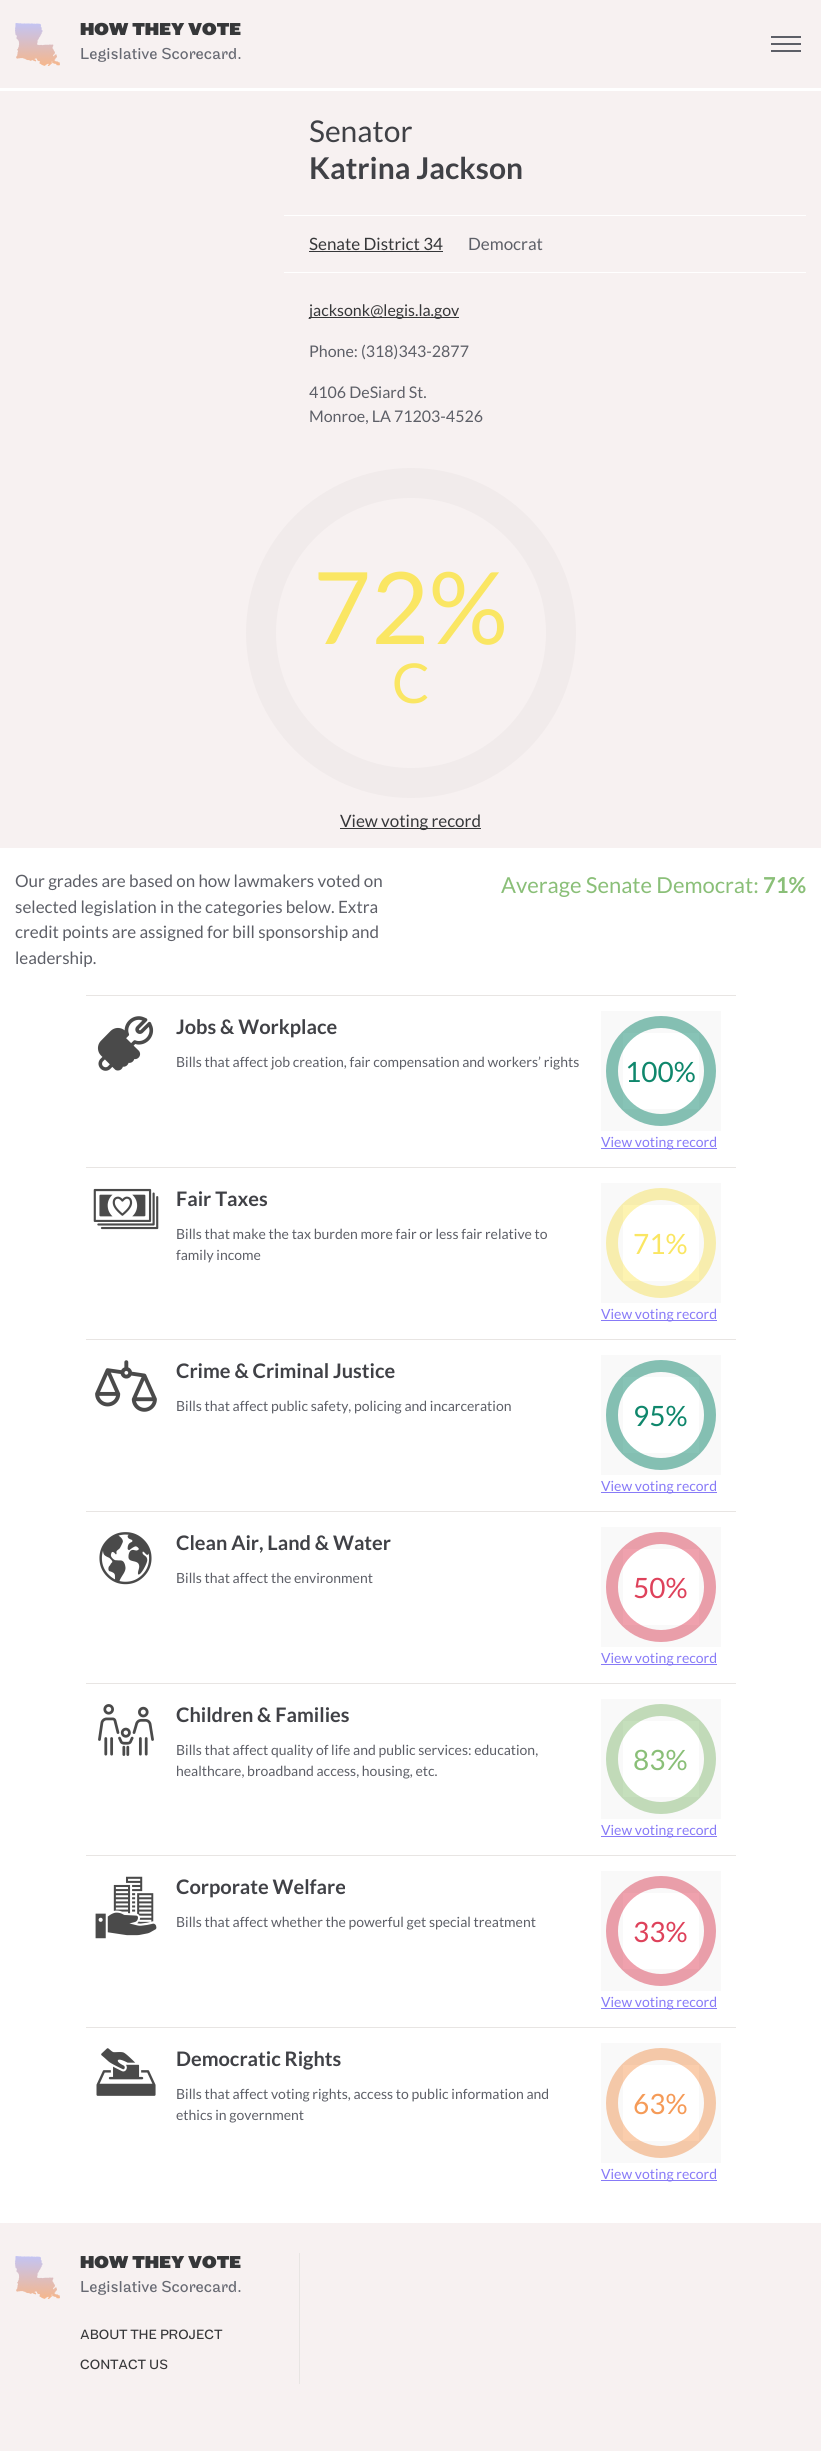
#include <cairo.h>
#include <math.h>
#include <stddef.h>

static cairo_t *c;
static void C(unsigned color){cairo_set_source_rgb(c, (color >> 16) / 255.0, (color >> 8 & 255) / 255.0, (color & 255) / 255.0);}
static void F(const char *family, double size, int italic, int bold){cairo_select_font_face(c, family, italic ? CAIRO_FONT_SLANT_ITALIC : CAIRO_FONT_SLANT_NORMAL,bold ? CAIRO_FONT_WEIGHT_BOLD : CAIRO_FONT_WEIGHT_NORMAL);cairo_set_font_size(c, size);}
static void T(double x, double y, const char *s){cairo_move_to(c, x, y);cairo_show_text(c, s);}
static void R(double x, double y, double w, double h){cairo_rectangle(c, x, y, w, h);cairo_fill(c);}
static void I(const char *path, double x, double y, double w, double h){cairo_surface_t *image = cairo_image_surface_create_from_png(path);cairo_save(c);cairo_set_source_surface(c, image, x, y);cairo_rectangle(c, x, y, w, h);cairo_fill(c);cairo_restore(c);cairo_surface_destroy(image);}
int main(void) {
cairo_surface_t *surface = cairo_image_surface_create(CAIRO_FORMAT_RGB24, 821, 2451);
c = cairo_create(surface);
cairo_font_options_t *options = cairo_font_options_create();
cairo_font_options_set_hint_metrics(options, CAIRO_HINT_METRICS_OFF);
cairo_font_options_set_hint_style(options, CAIRO_HINT_STYLE_NONE);
cairo_set_font_options(c, options);
cairo_set_miter_limit(c, 4);
C(0xf7f1f1);
cairo_paint(c);
C(0xffffff);
R(0,88,821,3);
I("1.png",15,23,45,43);
F("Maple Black",18,0,0);
C(0x363739);
T(80,35,"HOW THEY VOTE");
F("Maple",16.5,0,0);
C(0x686a73);
T(80,59,"Legislative Scorecard.");
C(0x5d5f67);
R(771,36,30,2);
R(771,43,30,2);
R(771,50,30,2);
F("Lato",30,0,0);
C(0x404146);
T(309,142,"Senator");
F("Lato",30,0,1);
T(309,179,"Katrina Jackson");
C(0xffffff);
R(284,215,522,1);
F("Lato",17,0,0);
C(0x363739);
T(309,250,"Senate District 34");
R(309,251,134,1);
C(0x5d5f67);
T(468,250,"Democrat");
C(0xffffff);
R(284,272,522,1);
C(0x363739);
R(309,317,150,1);
F("Lato",16,0,0);
T(309,316,"jacksonk@legis.la.gov");
C(0x5d5f67);
T(309,357,"Phone: (318)343-2877");
T(309,398,"4106 DeSiard St.");
T(309,422,"Monroe, LA 71203-4526");
cairo_new_path(c);
cairo_arc(c,411,633,150,0,2 * M_PI);
C(0xf1ebeb);
cairo_set_line_width(c,30);
cairo_stroke(c);
F("Lato",100,0,0);
C(0xfae663);
T(313,644,"72%");
F("Lato",55,0,0);
T(392,703,"C");
C(0x363739);
R(340,828,141,1);
F("Lato",17,0,0);
T(340,827,"View voting record");
C(0xffffff);
R(0,848,821,1375);
C(0x5d5f67);
T(15,887,"Our grades are based on how lawmakers voted on");
T(15,913,"selected legislation in the categories below. Extra");
T(15,938,"credit points are assigned for bill sponsorship and");
T(15,964,"leadership.");
F("Lato",22,0,0);
C(0x8abf78);
T(501,893,"Average Senate Democrat:");
F("Lato",22,0,1);
T(763,893,"71%");
C(0xe8e5e3);
R(86,995,650,1);
R(86,1167,650,1);
I("2.png",97,1016,57,55);
F("Lato",20,0,1);
C(0x404146);
T(176,1034,"Jobs & Workplace");
F("Lato",14,0,0);
C(0x5d5f67);
T(176,1067,"Bills that affect job creation, fair compensation and workers’ rights");
cairo_new_path(c);
cairo_arc(c,661,1071,49,0,2 * M_PI);
C(0x87c3b6);
cairo_set_line_width(c,12);
cairo_stroke(c);
cairo_rectangle(c,612,1022,98,98);
cairo_set_source_rgba(c,0.196,0.2,0.216,0.03);
cairo_set_line_width(c,22);
cairo_stroke(c);
F("Lato",28,0,0);
C(0x0f876c);
T(625,1082,"100%");
C(0x877af7);
R(601,1148,116,1);
F("Lato",14,0,0);
T(601,1147,"View voting record");
C(0xe8e5e3);
R(86,1339,650,1);
I("3.png",93,1188,66,42);
F("Lato",20,0,1);
C(0x404146);
T(176,1206,"Fair Taxes");
F("Lato",14,0,0);
C(0x5d5f67);
T(176,1239,"Bills that make the tax burden more fair or less fair relative to");
T(176,1260,"family income");
cairo_new_path(c);
cairo_arc(c,661,1243,49,0,2 * M_PI);
C(0xfdf3b1);
cairo_set_line_width(c,12);
cairo_stroke(c);
cairo_rectangle(c,612,1194,98,98);
cairo_set_source_rgba(c,0.196,0.2,0.216,0.03);
cairo_set_line_width(c,22);
cairo_stroke(c);
F("Lato",28,0,0);
C(0xfae663);
T(633,1254,"71%");
C(0x877af7);
R(601,1320,116,1);
F("Lato",14,0,0);
T(601,1319,"View voting record");
C(0xe8e5e3);
R(86,1511,650,1);
I("4.png",95,1360,62,52);
F("Lato",20,0,1);
C(0x404146);
T(176,1378,"Crime & Criminal Justice");
F("Lato",14,0,0);
C(0x5d5f67);
T(176,1411,"Bills that affect public safety, policing and incarceration");
cairo_new_path(c);
cairo_arc(c,661,1415,49,0,2 * M_PI);
C(0x87c3b6);
cairo_set_line_width(c,12);
cairo_stroke(c);
cairo_rectangle(c,612,1366,98,98);
cairo_set_source_rgba(c,0.196,0.2,0.216,0.03);
cairo_set_line_width(c,22);
cairo_stroke(c);
F("Lato",28,0,0);
C(0x0f876c);
T(633,1426,"95%");
C(0x877af7);
R(601,1492,116,1);
F("Lato",14,0,0);
T(601,1491,"View voting record");
C(0xe8e5e3);
R(86,1683,650,1);
I("5.png",99,1532,53,53);
F("Lato",20,0,1);
C(0x404146);
T(176,1550,"Clean Air, Land & Water");
F("Lato",14,0,0);
C(0x5d5f67);
T(176,1583,"Bills that affect the environment");
cairo_new_path(c);
cairo_arc(c,661,1587,49,0,2 * M_PI);
C(0xefa1ad);
cairo_set_line_width(c,12);
cairo_stroke(c);
cairo_rectangle(c,612,1538,98,98);
cairo_set_source_rgba(c,0.196,0.2,0.216,0.03);
cairo_set_line_width(c,22);
cairo_stroke(c);
F("Lato",28,0,0);
C(0xde425b);
T(633,1598,"50%");
C(0x877af7);
R(601,1664,116,1);
F("Lato",14,0,0);
T(601,1663,"View voting record");
C(0xe8e5e3);
R(86,1855,650,1);
I("6.png",98,1704,56,52);
F("Lato",20,0,1);
C(0x404146);
T(176,1722,"Children & Families");
F("Lato",14,0,0);
C(0x5d5f67);
T(176,1755,"Bills that affect quality of life and public services: education,");
T(176,1776,"healthcare, broadband access, housing, etc.");
cairo_new_path(c);
cairo_arc(c,661,1759,49,0,2 * M_PI);
C(0xc5dfbc);
cairo_set_line_width(c,12);
cairo_stroke(c);
cairo_rectangle(c,612,1710,98,98);
cairo_set_source_rgba(c,0.196,0.2,0.216,0.03);
cairo_set_line_width(c,22);
cairo_stroke(c);
F("Lato",28,0,0);
C(0x8abf78);
T(633,1770,"83%");
C(0x877af7);
R(601,1836,116,1);
F("Lato",14,0,0);
T(601,1835,"View voting record");
C(0xe8e5e3);
R(86,2027,650,1);
I("7.png",95,1876,62,63);
F("Lato",20,0,1);
C(0x404146);
T(176,1894,"Corporate Welfare");
F("Lato",14,0,0);
C(0x5d5f67);
T(176,1927,"Bills that affect whether the powerful get special treatment");
cairo_new_path(c);
cairo_arc(c,661,1931,49,0,2 * M_PI);
C(0xefa1ad);
cairo_set_line_width(c,12);
cairo_stroke(c);
cairo_rectangle(c,612,1882,98,98);
cairo_set_source_rgba(c,0.196,0.2,0.216,0.03);
cairo_set_line_width(c,22);
cairo_stroke(c);
F("Lato",28,0,0);
C(0xde425b);
T(633,1942,"33%");
C(0x877af7);
R(601,2008,116,1);
F("Lato",14,0,0);
T(601,2007,"View voting record");
I("8.png",96,2048,60,48);
F("Lato",20,0,1);
C(0x404146);
T(176,2066,"Democratic Rights");
F("Lato",14,0,0);
C(0x5d5f67);
T(176,2099,"Bills that affect voting rights, access to public information and");
T(176,2120,"ethics in government");
cairo_new_path(c);
cairo_arc(c,661,2103,49,0,2 * M_PI);
C(0xfacdac);
cairo_set_line_width(c,12);
cairo_stroke(c);
cairo_rectangle(c,612,2054,98,98);
cairo_set_source_rgba(c,0.196,0.2,0.216,0.03);
cairo_set_line_width(c,22);
cairo_stroke(c);
F("Lato",28,0,0);
C(0xf59b58);
T(633,2114,"63%");
C(0x877af7);
R(601,2180,116,1);
F("Lato",14,0,0);
T(601,2179,"View voting record");
C(0xe8e5e3);
R(299,2253,1,131);
I("1.png",15,2256,45,43);
F("Maple Black",18,0,0);
C(0x363739);
T(80,2268,"HOW THEY VOTE");
F("Maple",16.5,0,0);
C(0x686a73);
T(80,2292,"Legislative Scorecard.");
F("Maple",14,0,0);
C(0x363739);
T(80,2339,"ABOUT THE PROJECT");
T(80,2369,"CONTACT US");
cairo_surface_write_to_png(surface, "o.png");
cairo_font_options_destroy(options);
cairo_destroy(c);
cairo_surface_destroy(surface);
return 0;
}
